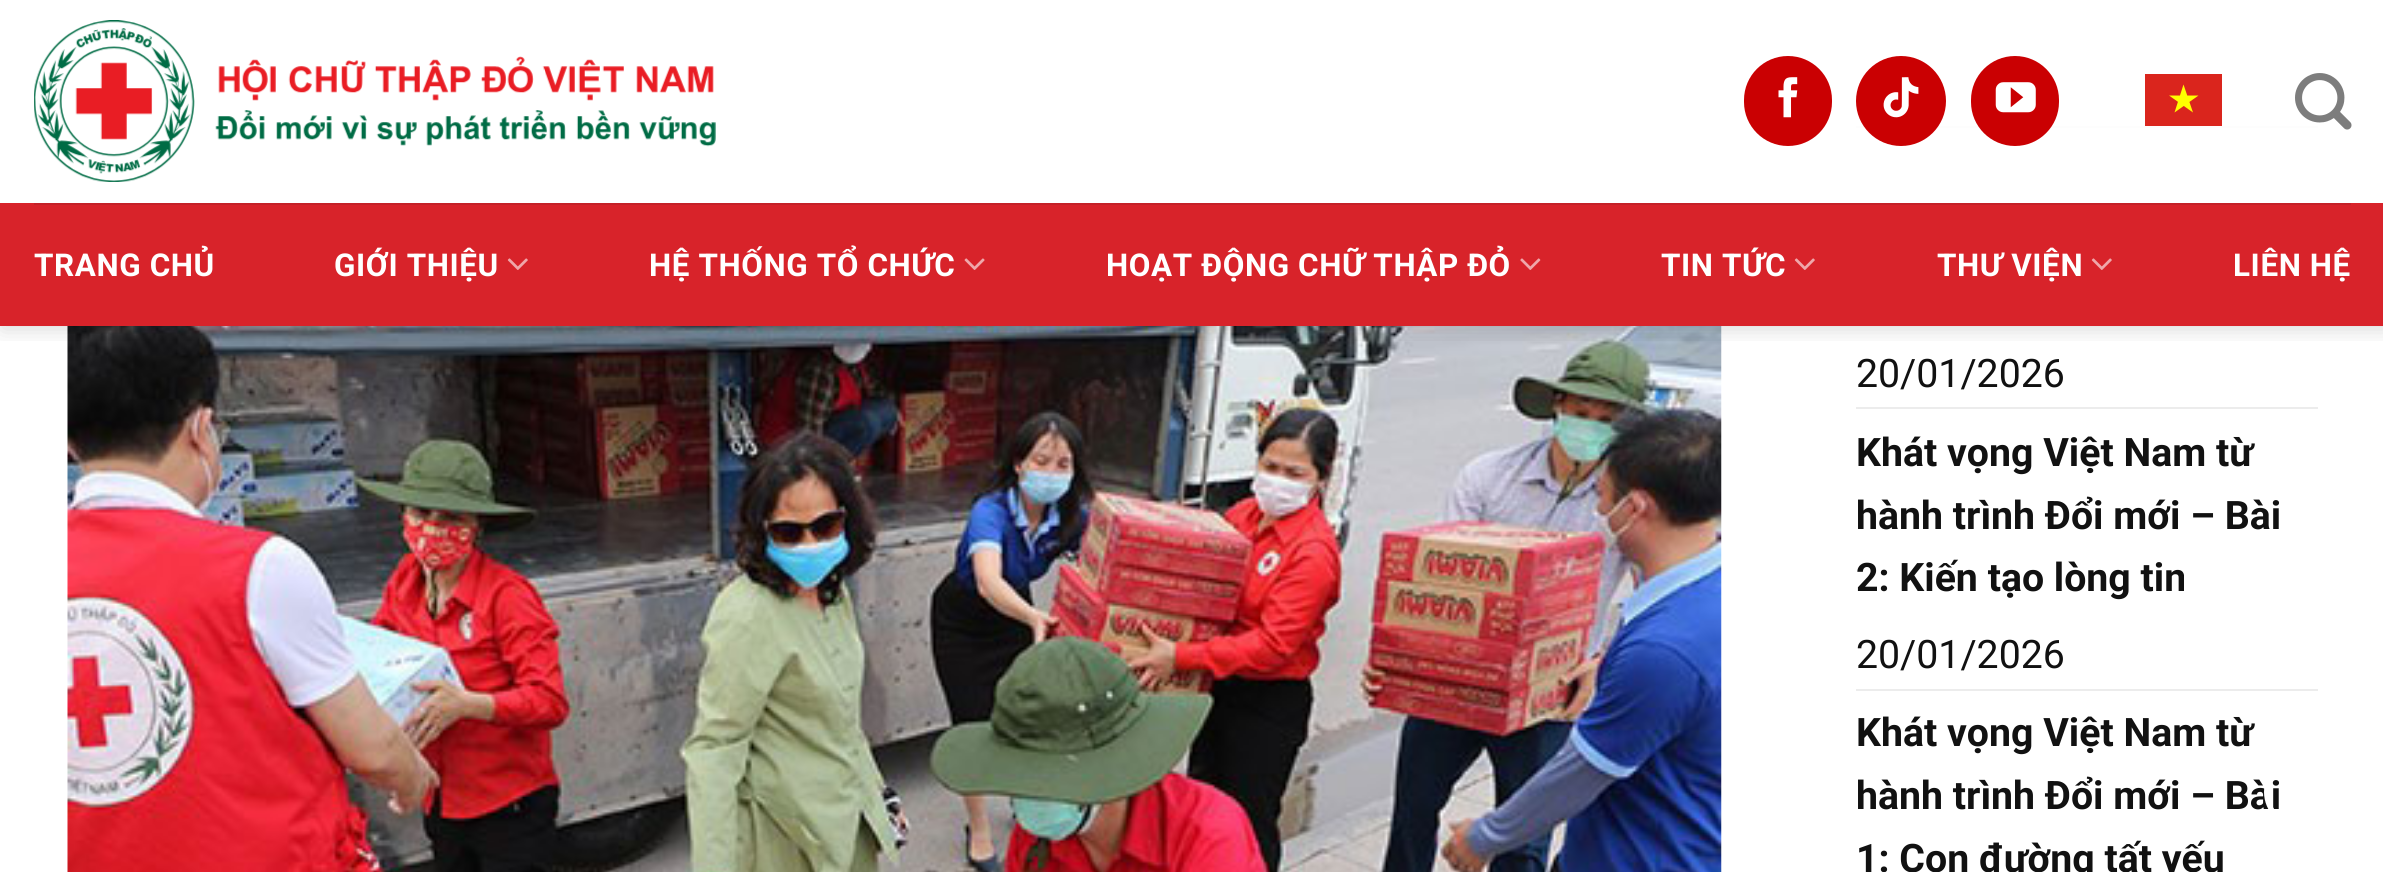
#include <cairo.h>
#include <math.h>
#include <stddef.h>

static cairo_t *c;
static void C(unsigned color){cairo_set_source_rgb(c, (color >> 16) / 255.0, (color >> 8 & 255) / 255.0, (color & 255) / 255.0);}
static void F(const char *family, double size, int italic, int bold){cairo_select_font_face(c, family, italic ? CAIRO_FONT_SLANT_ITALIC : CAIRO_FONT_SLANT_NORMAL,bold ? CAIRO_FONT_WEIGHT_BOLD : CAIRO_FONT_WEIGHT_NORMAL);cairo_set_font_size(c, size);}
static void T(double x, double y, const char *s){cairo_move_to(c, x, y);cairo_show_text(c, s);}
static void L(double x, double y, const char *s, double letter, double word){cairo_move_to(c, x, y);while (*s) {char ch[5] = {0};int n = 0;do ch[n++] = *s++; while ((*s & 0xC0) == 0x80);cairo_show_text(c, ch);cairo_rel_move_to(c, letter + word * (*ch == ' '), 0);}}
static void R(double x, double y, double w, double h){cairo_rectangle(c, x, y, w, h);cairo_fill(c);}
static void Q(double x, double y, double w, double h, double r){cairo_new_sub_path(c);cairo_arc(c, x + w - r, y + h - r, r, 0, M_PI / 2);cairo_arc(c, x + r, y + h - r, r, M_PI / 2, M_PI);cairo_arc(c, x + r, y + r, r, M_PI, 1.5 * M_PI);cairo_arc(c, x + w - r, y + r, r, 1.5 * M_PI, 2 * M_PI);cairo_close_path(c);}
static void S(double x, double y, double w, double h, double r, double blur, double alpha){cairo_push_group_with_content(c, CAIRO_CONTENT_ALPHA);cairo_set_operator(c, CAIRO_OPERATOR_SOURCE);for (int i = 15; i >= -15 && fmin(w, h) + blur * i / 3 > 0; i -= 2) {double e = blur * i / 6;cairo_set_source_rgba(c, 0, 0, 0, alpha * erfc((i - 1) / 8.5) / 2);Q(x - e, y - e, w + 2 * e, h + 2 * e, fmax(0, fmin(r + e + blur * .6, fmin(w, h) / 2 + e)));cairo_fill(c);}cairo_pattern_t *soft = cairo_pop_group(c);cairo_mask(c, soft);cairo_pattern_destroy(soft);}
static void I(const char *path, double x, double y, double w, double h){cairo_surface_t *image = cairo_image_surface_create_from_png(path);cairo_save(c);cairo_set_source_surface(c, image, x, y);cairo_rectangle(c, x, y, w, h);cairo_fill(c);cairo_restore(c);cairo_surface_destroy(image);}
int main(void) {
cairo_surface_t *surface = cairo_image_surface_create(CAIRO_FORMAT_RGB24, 2383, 872);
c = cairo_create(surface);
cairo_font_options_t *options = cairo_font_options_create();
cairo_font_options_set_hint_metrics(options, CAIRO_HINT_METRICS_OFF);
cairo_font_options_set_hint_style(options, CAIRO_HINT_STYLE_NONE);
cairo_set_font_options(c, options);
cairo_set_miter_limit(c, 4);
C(0xffffff);
cairo_paint(c);
I("9.png",67,326,1655,546);
C(0xececec);
R(1856,126,462,2);
cairo_save(c);
cairo_rectangle(c,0,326,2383,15);
cairo_clip(c);
C(0x000000);
S(2,2,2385,327,0,11,.15);
cairo_restore(c);
I("1.png",34,20,682,162);
C(0xca0002);
Q(1744,56,88,90,44);
cairo_fill(c);
I("2.png",1778,77,20,41);
cairo_set_source_rgba(c,1,1,1,0.9);
R(1856,126,462,2);
C(0xca0002);
cairo_arc(c,1901,101,45,0,2 * M_PI);
cairo_fill(c);
I("3.png",1883,77,36,41);
Q(1971,56,88,90,44);
cairo_fill(c);
I("4.png",1995,82,41,31);
C(0xda251d);
R(2145,74,77,52);
C(0xffff00);
cairo_new_path(c);
cairo_move_to(c,2183.5,84.5);
cairo_line_to(c,2174.5,112.5);
cairo_line_to(c,2198.5,95.5);
cairo_line_to(c,2169,95.5);
cairo_line_to(c,2193,112.5);
cairo_close_path(c);
cairo_fill(c);
I("5.png",2295,73,57,57);
C(0xd8232a);
R(0,203,2383,123);
C(0xc42128);
R(34,203,2317,2);
F("Roboto",31.4,0,1);
C(0xffffff);
L(34,276,"TRANG CHỦ",.6,0);
L(334,276,"GIỚI THIỆU",.6,0);
I("6.png",507,258,21,12);
L(649,276,"HỆ THỐNG TỔ CHỨC",.6,0);
I("7.png",964,258,21,12);
L(1106,276,"HOẠT ĐỘNG CHỮ THẬP ĐỎ",.6,0);
I("8.png",1520,258,21,12);
L(1661,276,"TIN TỨC",.6,0);
I("6.png",1794,258,21,12);
L(1937,276,"THƯ VIỆN",.6,0);
I("6.png",2091,258,21,12);
L(2233,276,"LIÊN HỆ",.6,0);
F("Roboto",39.25,0,0);
C(0x111111);
T(1856,387,"20/01/2026");
C(0xececec);
R(1856,407,462,2);
F("Roboto",39.25,0,1);
C(0x111111);
T(1856,466,"Khát vọng Việt Nam từ");
T(1856,529,"hành trình Đổi mới – Bài");
T(1856,591,"2: Kiến tạo lòng tin");
F("Roboto",39.25,0,0);
T(1856,668,"20/01/2026");
C(0xececec);
R(1856,689,462,2);
F("Roboto",39.25,0,1);
C(0x111111);
T(1856,746,"Khát vọng Việt Nam từ");
T(1856,809,"hành trình Đổi mới – Bài");
T(1856,872,"1: Con đường tất yếu");
cairo_new_path(c);
cairo_arc(c,2300,792,33.5,0,2 * M_PI);
C(0xffffff);
cairo_set_line_width(c,5);
cairo_stroke(c);
cairo_surface_write_to_png(surface, "o.png");
cairo_font_options_destroy(options);
cairo_destroy(c);
cairo_surface_destroy(surface);
return 0;
}
